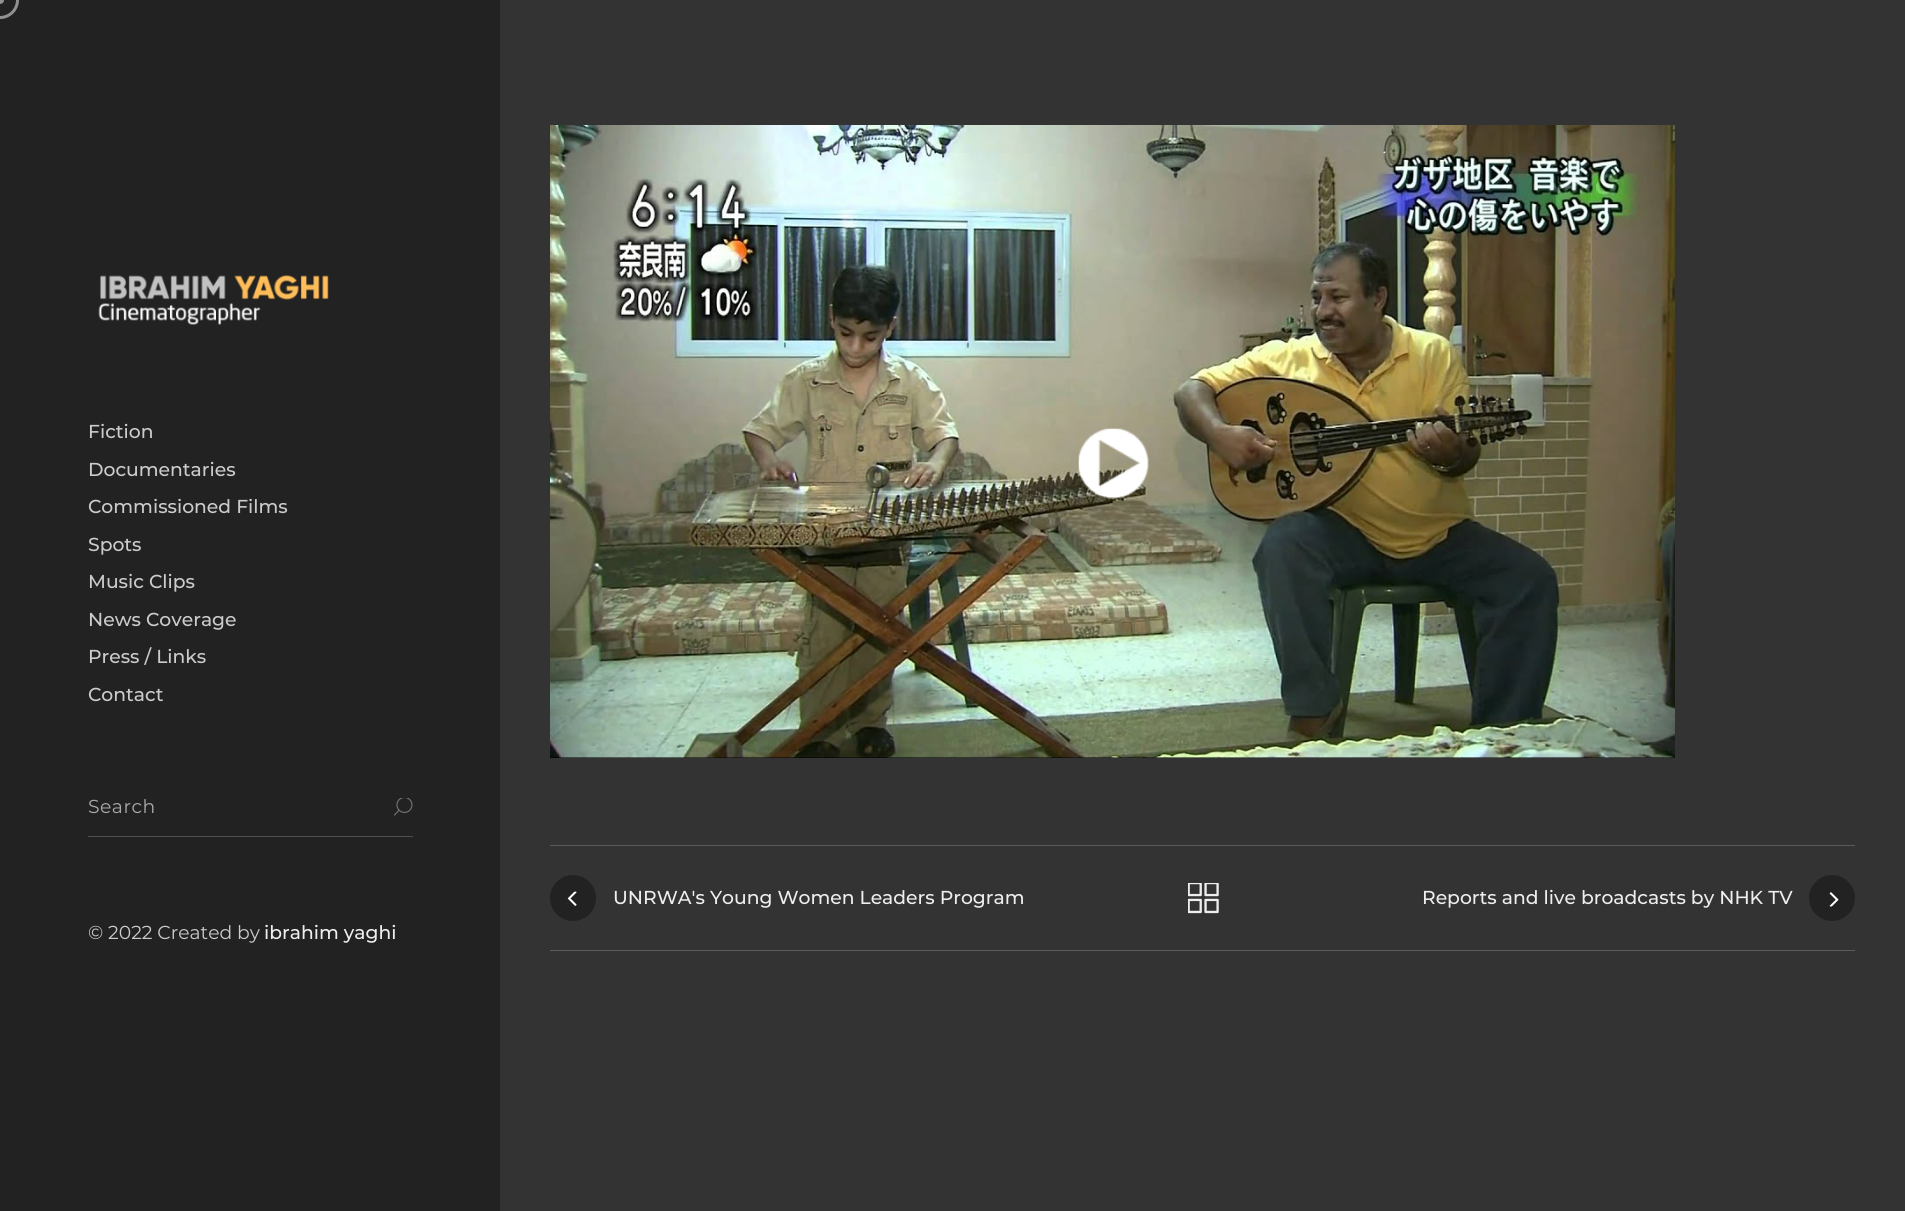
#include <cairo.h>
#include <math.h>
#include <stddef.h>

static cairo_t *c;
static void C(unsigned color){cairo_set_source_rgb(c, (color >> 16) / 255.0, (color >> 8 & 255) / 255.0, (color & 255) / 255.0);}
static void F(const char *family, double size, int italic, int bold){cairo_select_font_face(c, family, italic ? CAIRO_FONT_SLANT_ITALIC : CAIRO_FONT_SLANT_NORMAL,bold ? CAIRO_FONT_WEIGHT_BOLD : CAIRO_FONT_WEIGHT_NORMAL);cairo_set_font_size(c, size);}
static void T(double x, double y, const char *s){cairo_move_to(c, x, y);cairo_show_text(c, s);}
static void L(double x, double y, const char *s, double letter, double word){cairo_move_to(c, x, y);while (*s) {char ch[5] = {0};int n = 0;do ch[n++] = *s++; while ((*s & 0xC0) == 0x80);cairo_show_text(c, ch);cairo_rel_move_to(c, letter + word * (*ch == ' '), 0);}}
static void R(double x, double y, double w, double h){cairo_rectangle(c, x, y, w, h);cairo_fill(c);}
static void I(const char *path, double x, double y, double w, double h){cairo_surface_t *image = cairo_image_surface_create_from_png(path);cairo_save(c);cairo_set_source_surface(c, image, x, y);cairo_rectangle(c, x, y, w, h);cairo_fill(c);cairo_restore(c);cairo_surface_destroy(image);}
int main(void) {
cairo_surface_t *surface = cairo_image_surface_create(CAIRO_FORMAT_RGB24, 1905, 1211);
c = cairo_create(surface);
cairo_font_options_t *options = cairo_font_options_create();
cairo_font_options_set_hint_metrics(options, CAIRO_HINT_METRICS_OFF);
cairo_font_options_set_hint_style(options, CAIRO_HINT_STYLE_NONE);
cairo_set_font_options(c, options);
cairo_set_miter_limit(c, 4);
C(0x333333);
cairo_paint(c);
C(0x222222);
R(0,0,500,1211);
I("1.png",98,275,231,50);
F("Montserrat Medium",18.75,0,0);
C(0xcccccc);
T(88,438,"Fiction");
T(88,476,"Documentaries");
T(88,513,"Commissioned Films");
T(88,551,"Spots");
T(88,588,"Music Clips");
T(88,626,"News Coverage");
T(88,663,"Press / Links");
T(88,701,"Contact");
C(0x4e4e4e);
R(88,836,325,1);
F("Montserrat Thin",18.75,0,0);
C(0xaaaaaa);
L(88,813,"Search",.5,0);
I("2.png",394,798,19,18);
C(0xcccccc);
T(88,939,"© 2022 Created by");
F("Montserrat Medium",18.75,0,0);
C(0xeeeeee);
T(264,939,"ibrahim yaghi");
cairo_new_path(c);
cairo_arc(c,0,0,17.5,0,2 * M_PI);
C(0x919191);
cairo_set_line_width(c,3);
cairo_stroke(c);
cairo_arc(c,0,0,4,0,2 * M_PI);
cairo_fill(c);
C(0x000000);
R(550,757,1125,1);
I("3.png",550,125,1125,633);
I("4.png",1078,428,71,71);
C(0x5c5c5c);
R(550,845,1305,1);
R(550,950,1305,1);
I("5.png",557,875,38,17);
C(0x222222);
cairo_arc(c,573,898,23,0,2 * M_PI);
cairo_fill(c);
I("6.png",567,891,10,15);
C(0xeeeeee);
T(613,904,"UNRWA's Young Women Leaders Program");
I("7.png",1188,883,31,31);
T(1422,904,"Reports and live broadcasts by NHK TV");
I("8.png",1810,875,38,17);
C(0x222222);
cairo_arc(c,1832,898,23,0,2 * M_PI);
cairo_fill(c);
I("9.png",1829,892,10,15);
cairo_surface_write_to_png(surface, "o.png");
cairo_font_options_destroy(options);
cairo_destroy(c);
cairo_surface_destroy(surface);
return 0;
}
